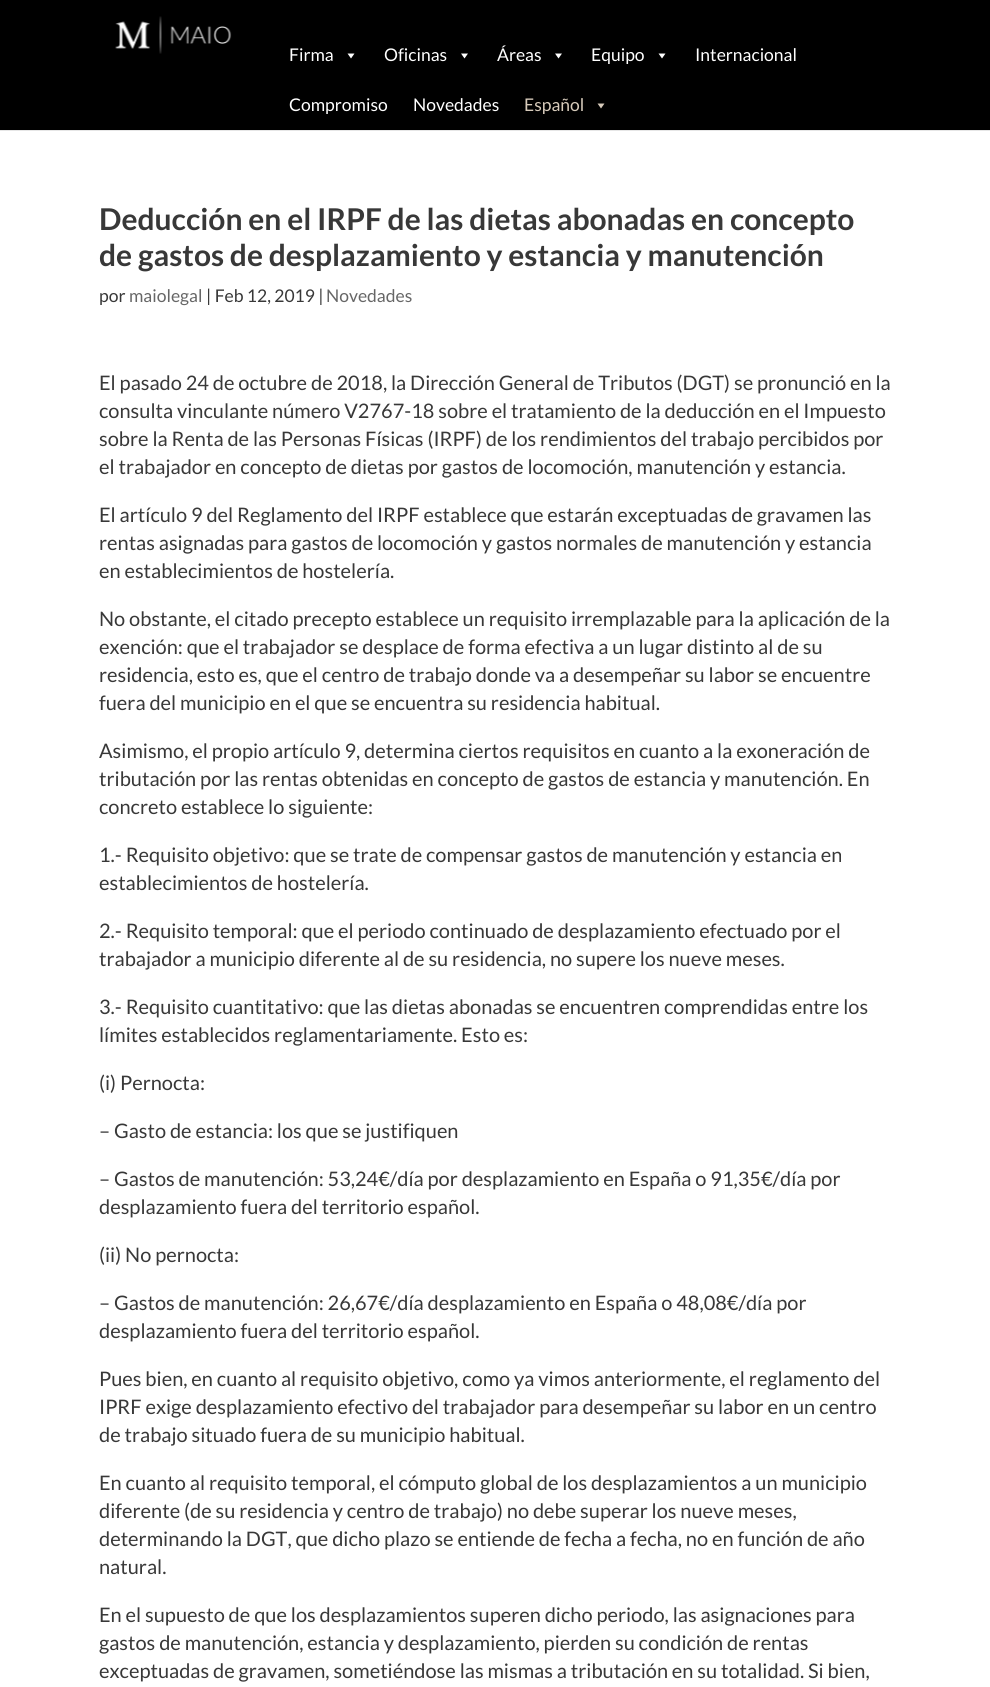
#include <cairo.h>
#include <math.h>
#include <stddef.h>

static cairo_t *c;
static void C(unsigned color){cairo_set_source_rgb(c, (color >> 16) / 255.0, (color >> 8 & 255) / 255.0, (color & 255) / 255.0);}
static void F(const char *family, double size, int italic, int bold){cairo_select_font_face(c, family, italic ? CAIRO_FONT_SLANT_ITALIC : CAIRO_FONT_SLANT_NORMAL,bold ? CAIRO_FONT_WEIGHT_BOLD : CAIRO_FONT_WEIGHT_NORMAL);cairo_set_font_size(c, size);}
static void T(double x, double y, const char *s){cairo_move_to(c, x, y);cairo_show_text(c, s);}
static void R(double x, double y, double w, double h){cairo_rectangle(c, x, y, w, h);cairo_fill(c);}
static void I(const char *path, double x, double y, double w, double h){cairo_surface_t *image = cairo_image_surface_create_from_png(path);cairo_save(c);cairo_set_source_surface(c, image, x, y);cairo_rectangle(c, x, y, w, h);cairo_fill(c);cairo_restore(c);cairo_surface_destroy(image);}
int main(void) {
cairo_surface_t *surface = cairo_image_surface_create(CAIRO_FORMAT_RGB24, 990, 1687);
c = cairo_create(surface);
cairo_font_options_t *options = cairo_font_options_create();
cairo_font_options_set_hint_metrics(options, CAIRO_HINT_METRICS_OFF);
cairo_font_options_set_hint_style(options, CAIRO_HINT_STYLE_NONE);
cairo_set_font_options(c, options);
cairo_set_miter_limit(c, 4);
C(0xffffff);
cairo_paint(c);
C(0xe6e6e6);
R(0,130,990,1);
C(0x000000);
R(0,0,990,130);
I("1.png",115,16,117,38);
F("Lato",17.5,0,0);
C(0xffffff);
T(289,61,"Firma");
cairo_new_path(c);
cairo_move_to(c,354.5,53.5);
cairo_line_to(c,351,58.5);
cairo_line_to(c,347.5,53.5);
cairo_close_path(c);
cairo_fill(c);
T(384,61,"Oficinas");
cairo_new_path(c);
cairo_move_to(c,468,53.5);
cairo_line_to(c,464.5,58.5);
cairo_line_to(c,461,53.5);
cairo_close_path(c);
cairo_fill(c);
T(497,61,"Áreas");
cairo_new_path(c);
cairo_move_to(c,562,53.5);
cairo_line_to(c,558.5,58.5);
cairo_line_to(c,555,53.5);
cairo_close_path(c);
cairo_fill(c);
T(591,61,"Equipo");
cairo_new_path(c);
cairo_move_to(c,665.5,53.5);
cairo_line_to(c,662,58.5);
cairo_line_to(c,658.5,53.5);
cairo_close_path(c);
cairo_fill(c);
T(695,61,"Internacional");
T(289,111,"Compromiso");
T(413,111,"Novedades");
C(0xd7cbbb);
T(524,111,"Español");
cairo_new_path(c);
cairo_move_to(c,604.5,103.5);
cairo_line_to(c,601,108.5);
cairo_line_to(c,597.5,103.5);
cairo_close_path(c);
cairo_fill(c);
F("Lato",30,0,1);
C(0x383838);
T(99,230,"Deducción en el IRPF de las dietas abonadas en concepto");
T(99,266,"de gastos de desplazamiento y estancia y manutención");
F("Lato",17.5,0,0);
T(99,302,"por");
C(0x666666);
T(129,302,"maiolegal");
C(0x383838);
T(206,302,"| Feb 12, 2019 |");
C(0x666666);
T(326,302,"Novedades");
F("Lato",20,0,0);
C(0x383838);
T(99,390,"El pasado 24 de octubre de 2018, la Dirección General de Tributos (DGT) se pronunció en la");
T(99,418,"consulta vinculante número V2767-18 sobre el tratamiento de la deducción en el Impuesto");
T(99,446,"sobre la Renta de las Personas Físicas (IRPF) de los rendimientos del trabajo percibidos por");
T(99,474,"el trabajador en concepto de dietas por gastos de locomoción, manutención y estancia.");
T(99,522,"El artículo 9 del Reglamento del IRPF establece que estarán exceptuadas de gravamen las");
T(99,550,"rentas asignadas para gastos de locomoción y gastos normales de manutención y estancia");
T(99,578,"en establecimientos de hostelería.");
T(99,626,"No obstante, el citado precepto establece un requisito irremplazable para la aplicación de la");
T(99,654,"exención: que el trabajador se desplace de forma efectiva a un lugar distinto al de su");
T(99,682,"residencia, esto es, que el centro de trabajo donde va a desempeñar su labor se encuentre");
T(99,710,"fuera del municipio en el que se encuentra su residencia habitual.");
T(99,758,"Asimismo, el propio artículo 9, determina ciertos requisitos en cuanto a la exoneración de");
T(99,786,"tributación por las rentas obtenidas en concepto de gastos de estancia y manutención. En");
T(99,814,"concreto establece lo siguiente:");
T(99,862,"1.- Requisito objetivo: que se trate de compensar gastos de manutención y estancia en");
T(99,890,"establecimientos de hostelería.");
T(99,938,"2.- Requisito temporal: que el periodo continuado de desplazamiento efectuado por el");
T(99,966,"trabajador a municipio diferente al de su residencia, no supere los nueve meses.");
T(99,1014,"3.- Requisito cuantitativo: que las dietas abonadas se encuentren comprendidas entre los");
T(99,1042,"límites establecidos reglamentariamente. Esto es:");
T(99,1090,"(i) Pernocta:");
T(99,1138,"– Gasto de estancia: los que se justifiquen");
T(99,1186,"– Gastos de manutención: 53,24€/día por desplazamiento en España o 91,35€/día por");
T(99,1214,"desplazamiento fuera del territorio español.");
T(99,1262,"(ii) No pernocta:");
T(99,1310,"– Gastos de manutención: 26,67€/día desplazamiento en España o 48,08€/día por");
T(99,1338,"desplazamiento fuera del territorio español.");
T(99,1386,"Pues bien, en cuanto al requisito objetivo, como ya vimos anteriormente, el reglamento del");
T(99,1414,"IPRF exige desplazamiento efectivo del trabajador para desempeñar su labor en un centro");
T(99,1442,"de trabajo situado fuera de su municipio habitual.");
T(99,1490,"En cuanto al requisito temporal, el cómputo global de los desplazamientos a un municipio");
T(99,1518,"diferente (de su residencia y centro de trabajo) no debe superar los nueve meses,");
T(99,1546,"determinando la DGT, que dicho plazo se entiende de fecha a fecha, no en función de año");
T(99,1574,"natural.");
T(99,1622,"En el supuesto de que los desplazamientos superen dicho periodo, las asignaciones para");
T(99,1650,"gastos de manutención, estancia y desplazamiento, pierden su condición de rentas");
T(99,1678,"exceptuadas de gravamen, sometiéndose las mismas a tributación en su totalidad. Si bien,");
cairo_surface_write_to_png(surface, "o.png");
cairo_font_options_destroy(options);
cairo_destroy(c);
cairo_surface_destroy(surface);
return 0;
}
